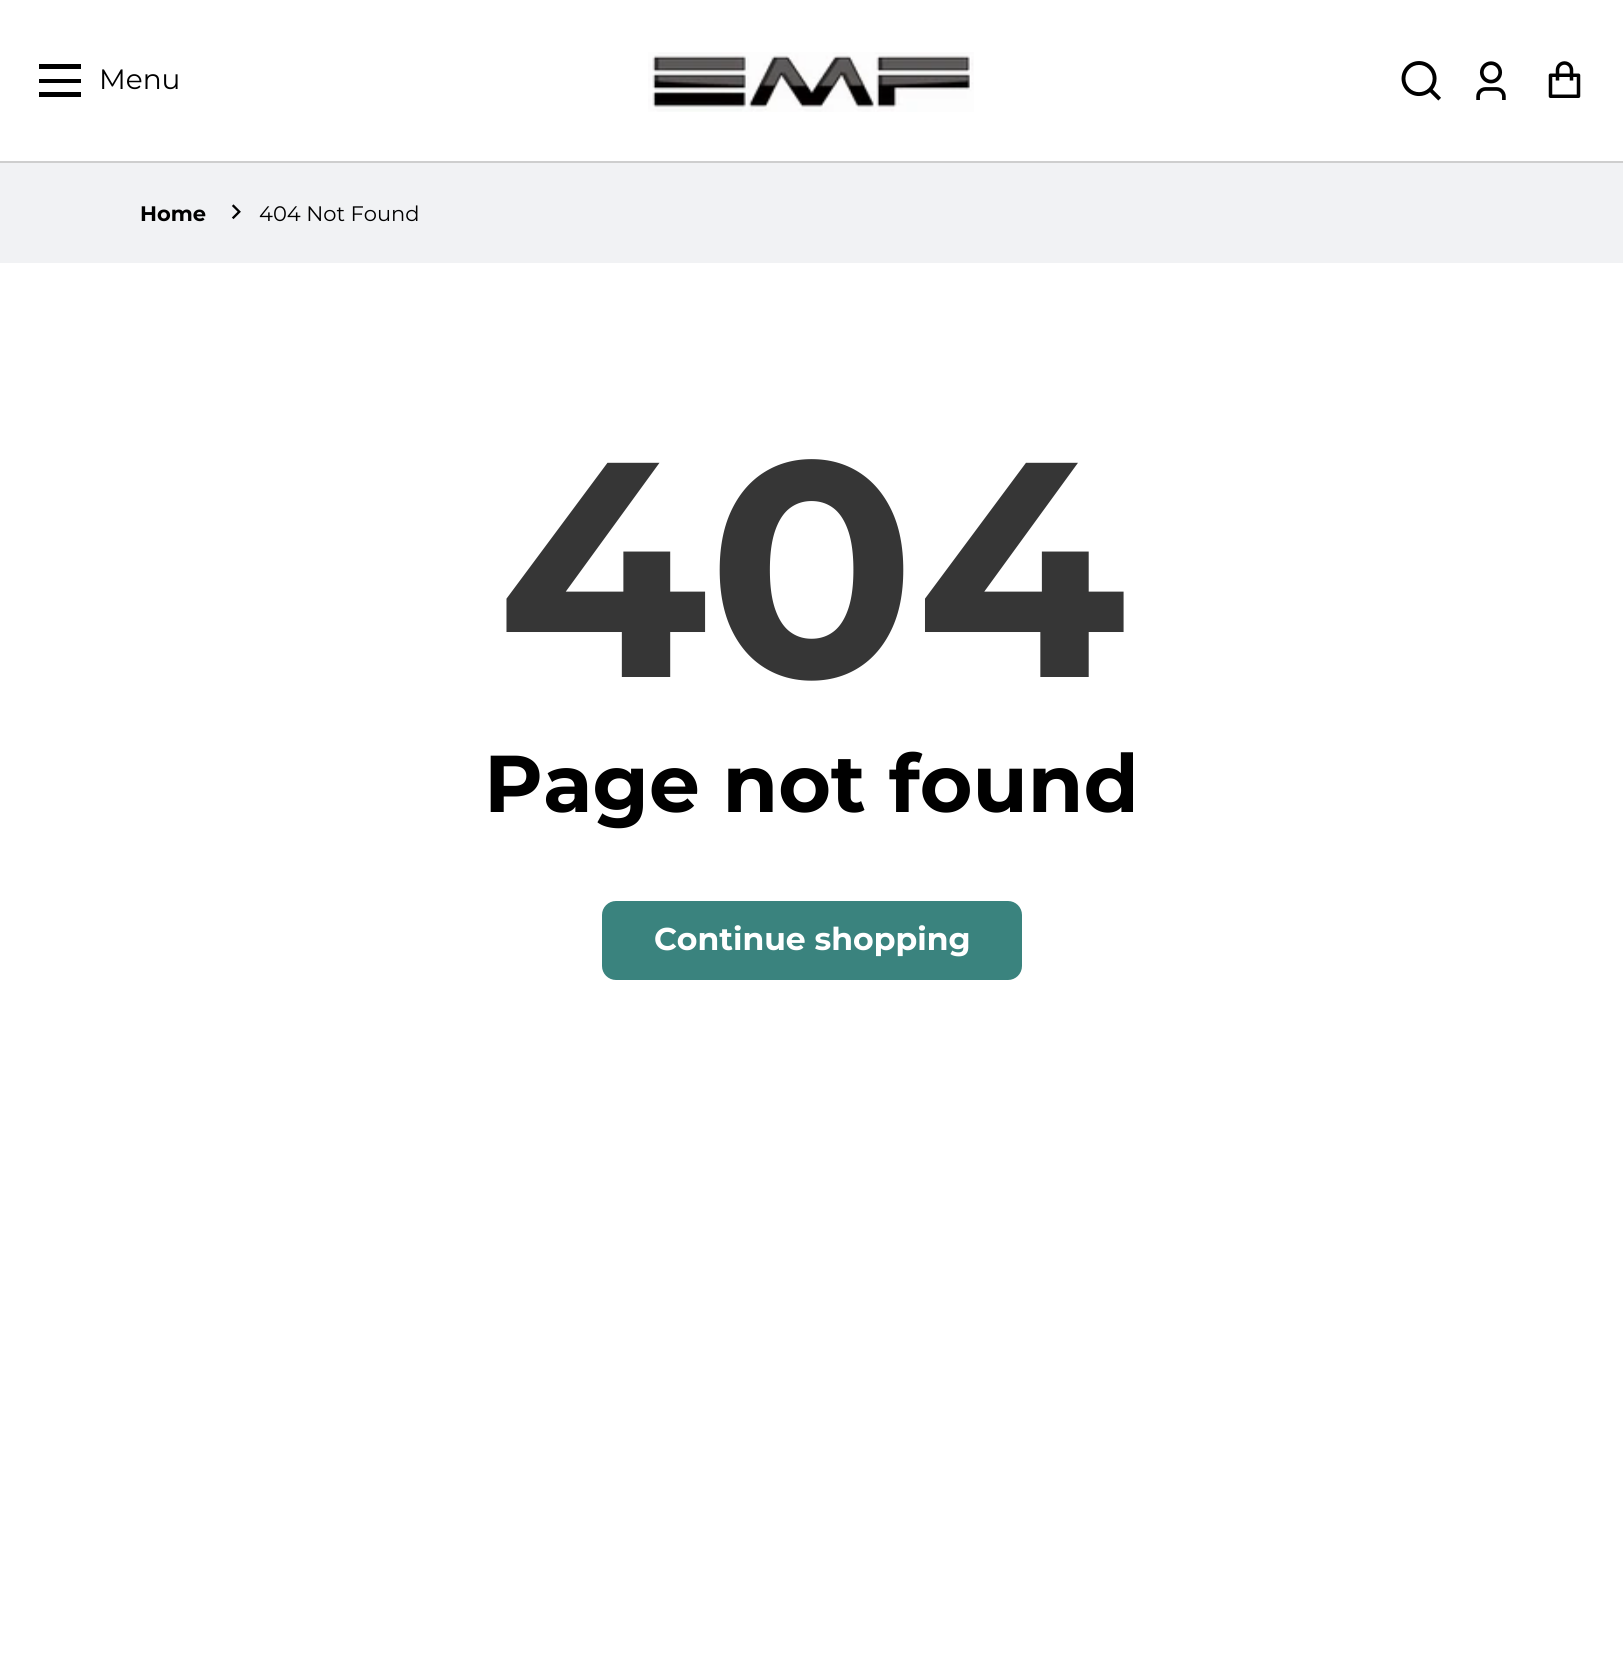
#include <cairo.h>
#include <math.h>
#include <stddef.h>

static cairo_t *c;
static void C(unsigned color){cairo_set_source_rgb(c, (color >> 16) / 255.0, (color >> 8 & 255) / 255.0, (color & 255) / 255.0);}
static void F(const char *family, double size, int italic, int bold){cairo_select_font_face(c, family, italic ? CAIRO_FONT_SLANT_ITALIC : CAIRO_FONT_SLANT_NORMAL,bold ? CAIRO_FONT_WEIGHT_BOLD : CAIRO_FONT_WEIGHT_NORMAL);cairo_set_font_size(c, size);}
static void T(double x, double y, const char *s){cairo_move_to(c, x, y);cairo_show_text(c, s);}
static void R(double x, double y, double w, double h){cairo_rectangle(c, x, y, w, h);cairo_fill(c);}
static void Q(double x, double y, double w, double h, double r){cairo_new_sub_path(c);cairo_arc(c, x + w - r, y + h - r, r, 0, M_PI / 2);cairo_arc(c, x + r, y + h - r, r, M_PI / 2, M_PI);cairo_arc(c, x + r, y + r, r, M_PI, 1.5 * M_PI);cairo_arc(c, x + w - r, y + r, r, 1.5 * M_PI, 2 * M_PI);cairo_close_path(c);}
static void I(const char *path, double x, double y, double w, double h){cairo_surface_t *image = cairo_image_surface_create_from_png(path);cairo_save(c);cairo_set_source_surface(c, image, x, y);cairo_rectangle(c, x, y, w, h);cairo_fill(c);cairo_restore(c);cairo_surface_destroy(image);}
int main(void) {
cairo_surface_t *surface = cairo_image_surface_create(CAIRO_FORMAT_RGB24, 1623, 1660);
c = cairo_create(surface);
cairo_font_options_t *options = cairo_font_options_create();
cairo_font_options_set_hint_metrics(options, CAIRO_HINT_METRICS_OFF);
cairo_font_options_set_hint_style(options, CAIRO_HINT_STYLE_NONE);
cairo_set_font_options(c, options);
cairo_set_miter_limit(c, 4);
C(0xffffff);
cairo_paint(c);
C(0xcecece);
R(0,161,1623,2);
C(0x000000);
R(39,92,42,5);
R(39,79,42,4);
R(39,64,42,5);
F("Montserrat",28,0,0);
T(99,89,"Menu");
I("1.png",648,52,326,60);
I("2.png",1401,61,40,40);
I("3.png",1476,61,30,39);
I("4.png",1548,61,33,37);
C(0xf1f2f4);
R(0,163,1623,100);
F("Montserrat",21,0,1);
C(0x000000);
T(140,221,"Home");
I("5.png",231,204,10,16);
F("Montserrat",21,0,0);
T(259,221,"404 Not Found");
F("Montserrat",306,0,1);
C(0x363636);
T(497,677,"404");
F("Montserrat",80.5,0,1);
C(0x000000);
T(484,812,"Page not found");
C(0x3a837e);
Q(602,901,420,79,14);
cairo_fill(c);
F("Montserrat",31.5,0,1);
C(0xffffff);
T(654,950,"Continue shopping");
cairo_surface_write_to_png(surface, "o.png");
cairo_font_options_destroy(options);
cairo_destroy(c);
cairo_surface_destroy(surface);
return 0;
}
